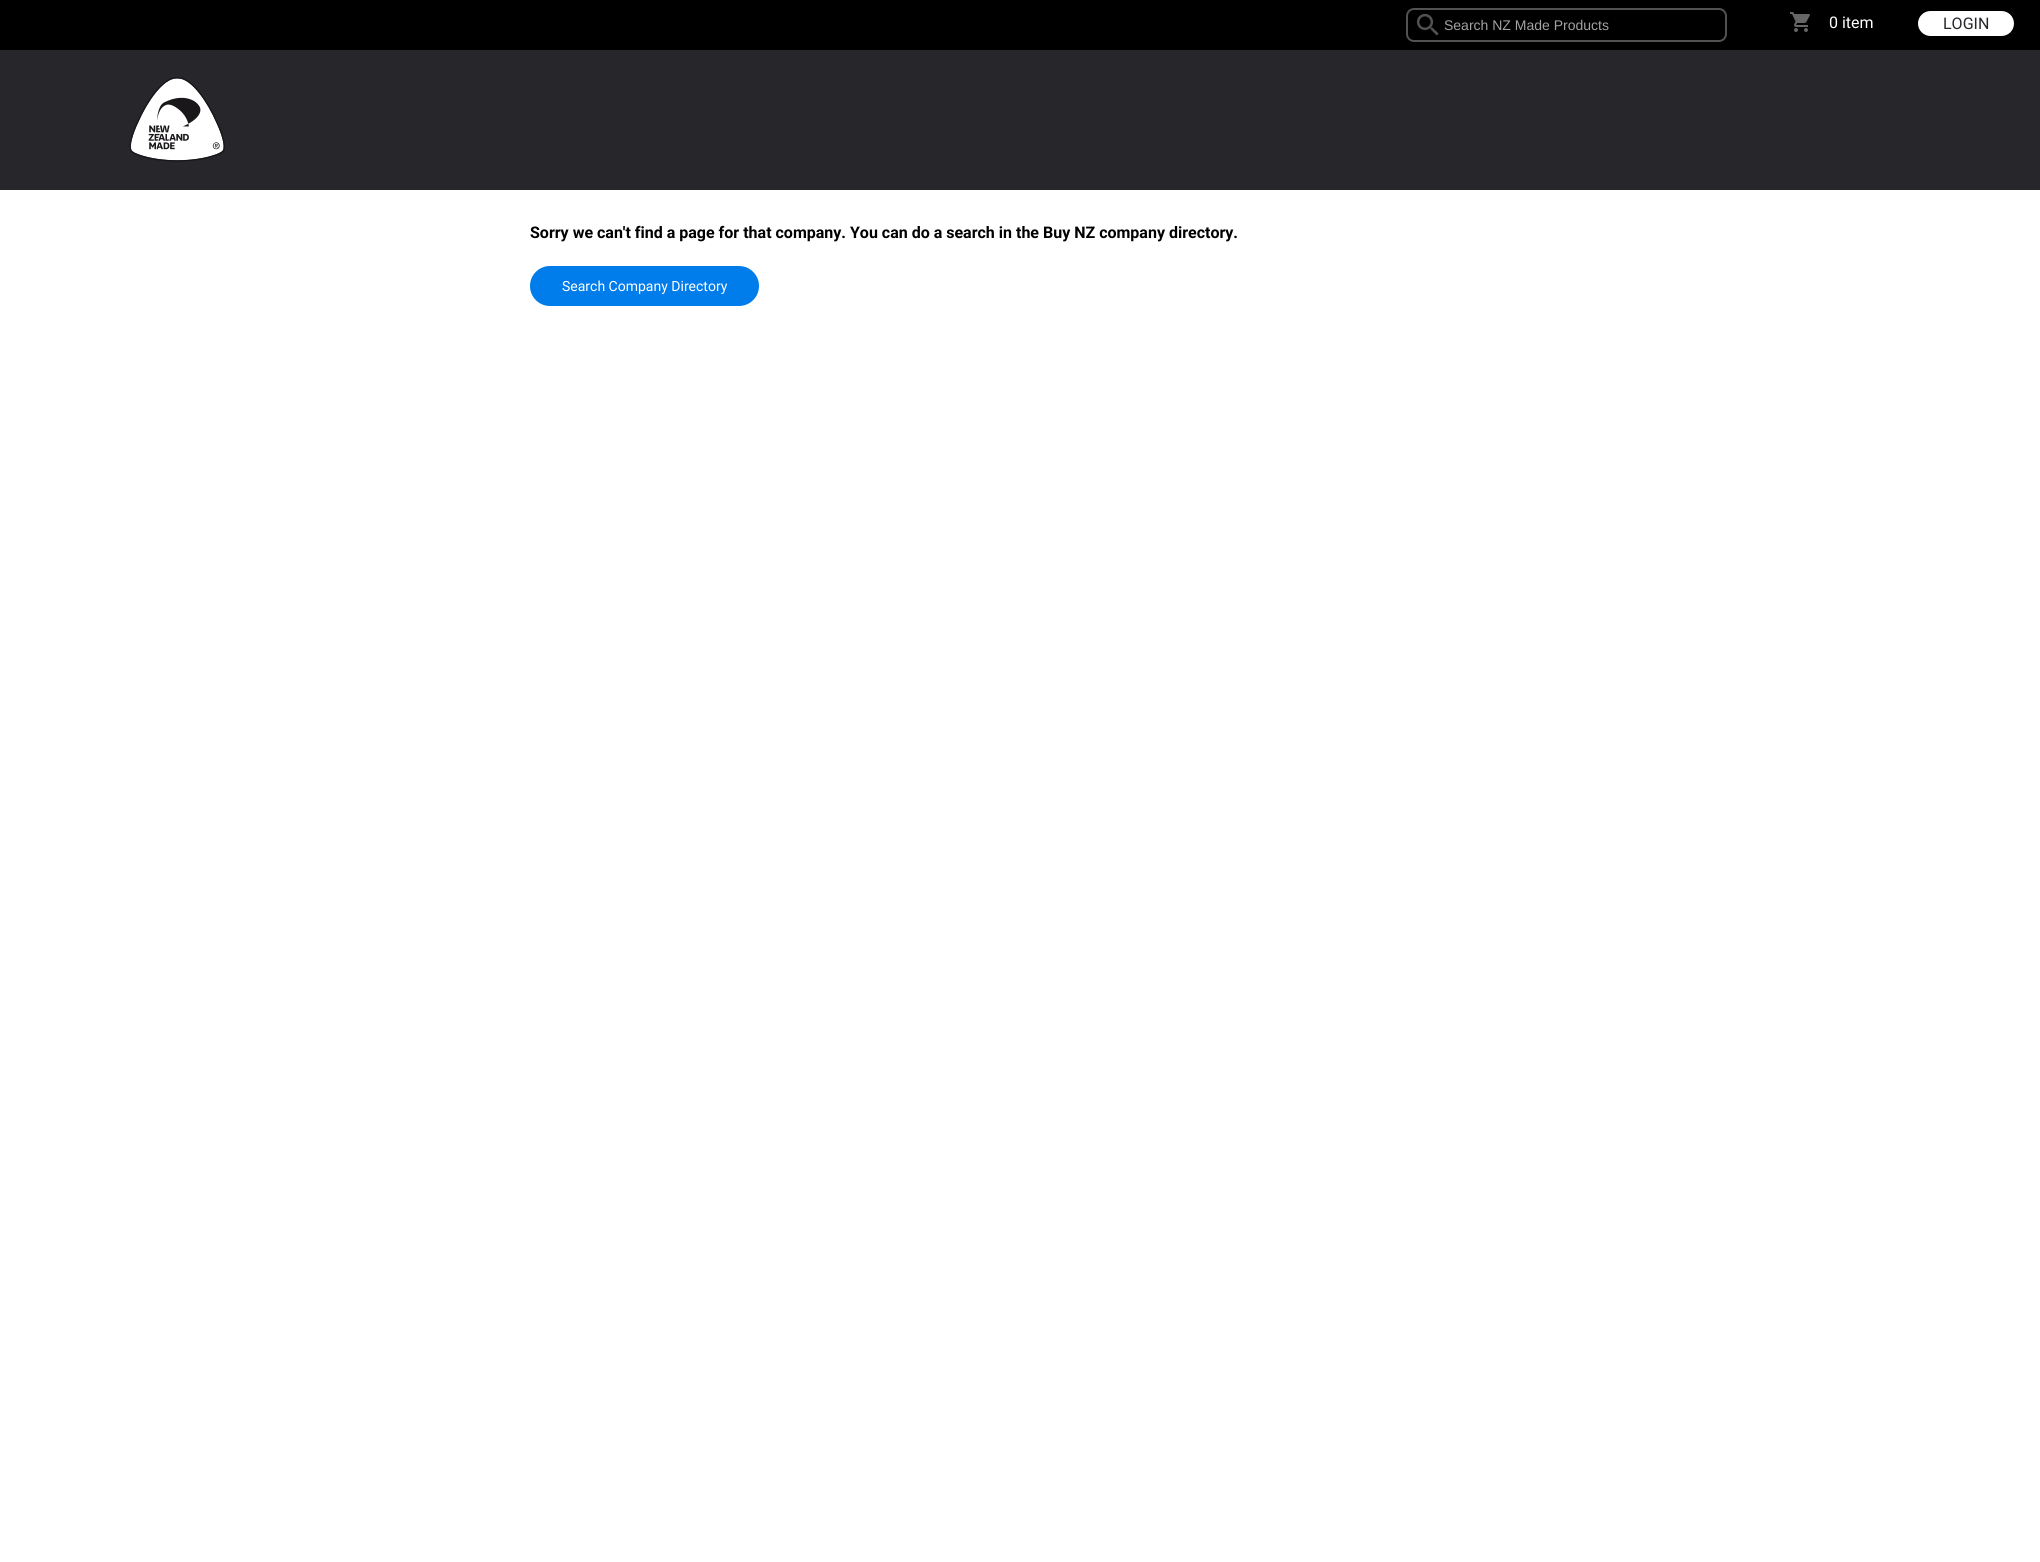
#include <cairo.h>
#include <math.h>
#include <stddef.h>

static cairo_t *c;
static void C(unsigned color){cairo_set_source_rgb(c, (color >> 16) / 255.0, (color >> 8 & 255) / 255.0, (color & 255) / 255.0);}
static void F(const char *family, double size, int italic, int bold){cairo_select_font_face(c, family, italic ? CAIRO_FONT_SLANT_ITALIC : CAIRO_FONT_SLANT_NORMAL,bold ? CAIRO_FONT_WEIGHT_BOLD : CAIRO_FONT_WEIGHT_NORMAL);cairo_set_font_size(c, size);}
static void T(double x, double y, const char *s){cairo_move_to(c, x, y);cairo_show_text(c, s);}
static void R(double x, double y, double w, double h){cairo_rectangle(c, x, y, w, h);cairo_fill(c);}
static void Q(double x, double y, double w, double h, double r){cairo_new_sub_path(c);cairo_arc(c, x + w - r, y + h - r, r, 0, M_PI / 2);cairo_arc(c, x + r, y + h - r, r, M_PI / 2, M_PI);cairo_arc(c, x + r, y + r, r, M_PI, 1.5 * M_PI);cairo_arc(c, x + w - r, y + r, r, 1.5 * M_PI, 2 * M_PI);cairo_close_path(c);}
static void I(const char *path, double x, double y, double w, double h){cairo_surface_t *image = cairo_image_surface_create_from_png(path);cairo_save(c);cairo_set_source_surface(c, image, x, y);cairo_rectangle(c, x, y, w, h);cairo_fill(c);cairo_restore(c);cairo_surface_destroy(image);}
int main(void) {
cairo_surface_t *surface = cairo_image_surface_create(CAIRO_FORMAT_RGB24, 2040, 1562);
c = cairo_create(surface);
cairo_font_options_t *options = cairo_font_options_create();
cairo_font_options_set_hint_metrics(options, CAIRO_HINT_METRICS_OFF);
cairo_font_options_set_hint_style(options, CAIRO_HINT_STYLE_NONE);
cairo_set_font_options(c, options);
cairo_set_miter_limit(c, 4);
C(0xffffff);
cairo_paint(c);
C(0x000000);
R(0,0,2040,50);
I("1.png",1416,14,23,22);
Q(1407,9,319,32,7);
C(0x525252);
cairo_stroke(c);
F("Liberation Sans",14,0,0);
C(0xa3a3a3);
T(1444,30,"Search NZ Made Products");
I("2.png",1790,12,20,20);
F("Roboto",16,0,0);
C(0xffffff);
T(1829,28,"0 item");
Q(1918,11,96,25,12.5);
cairo_fill(c);
C(0x27272b);
T(1943,29,"LOGIN");
R(0,50,2040,140);
I("3.png",129,77,96,85);
F("Roboto",16,0,1);
C(0x000000);
T(530,238,"Sorry we can't find a page for that company. You can do a search in the Buy NZ company directory.");
C(0x007ceb);
Q(530,266,229,40,20);
cairo_fill(c);
F("Roboto",14,0,0);
C(0xffffff);
T(562,291,"Search Company Directory");
cairo_surface_write_to_png(surface, "o.png");
cairo_font_options_destroy(options);
cairo_destroy(c);
cairo_surface_destroy(surface);
return 0;
}
